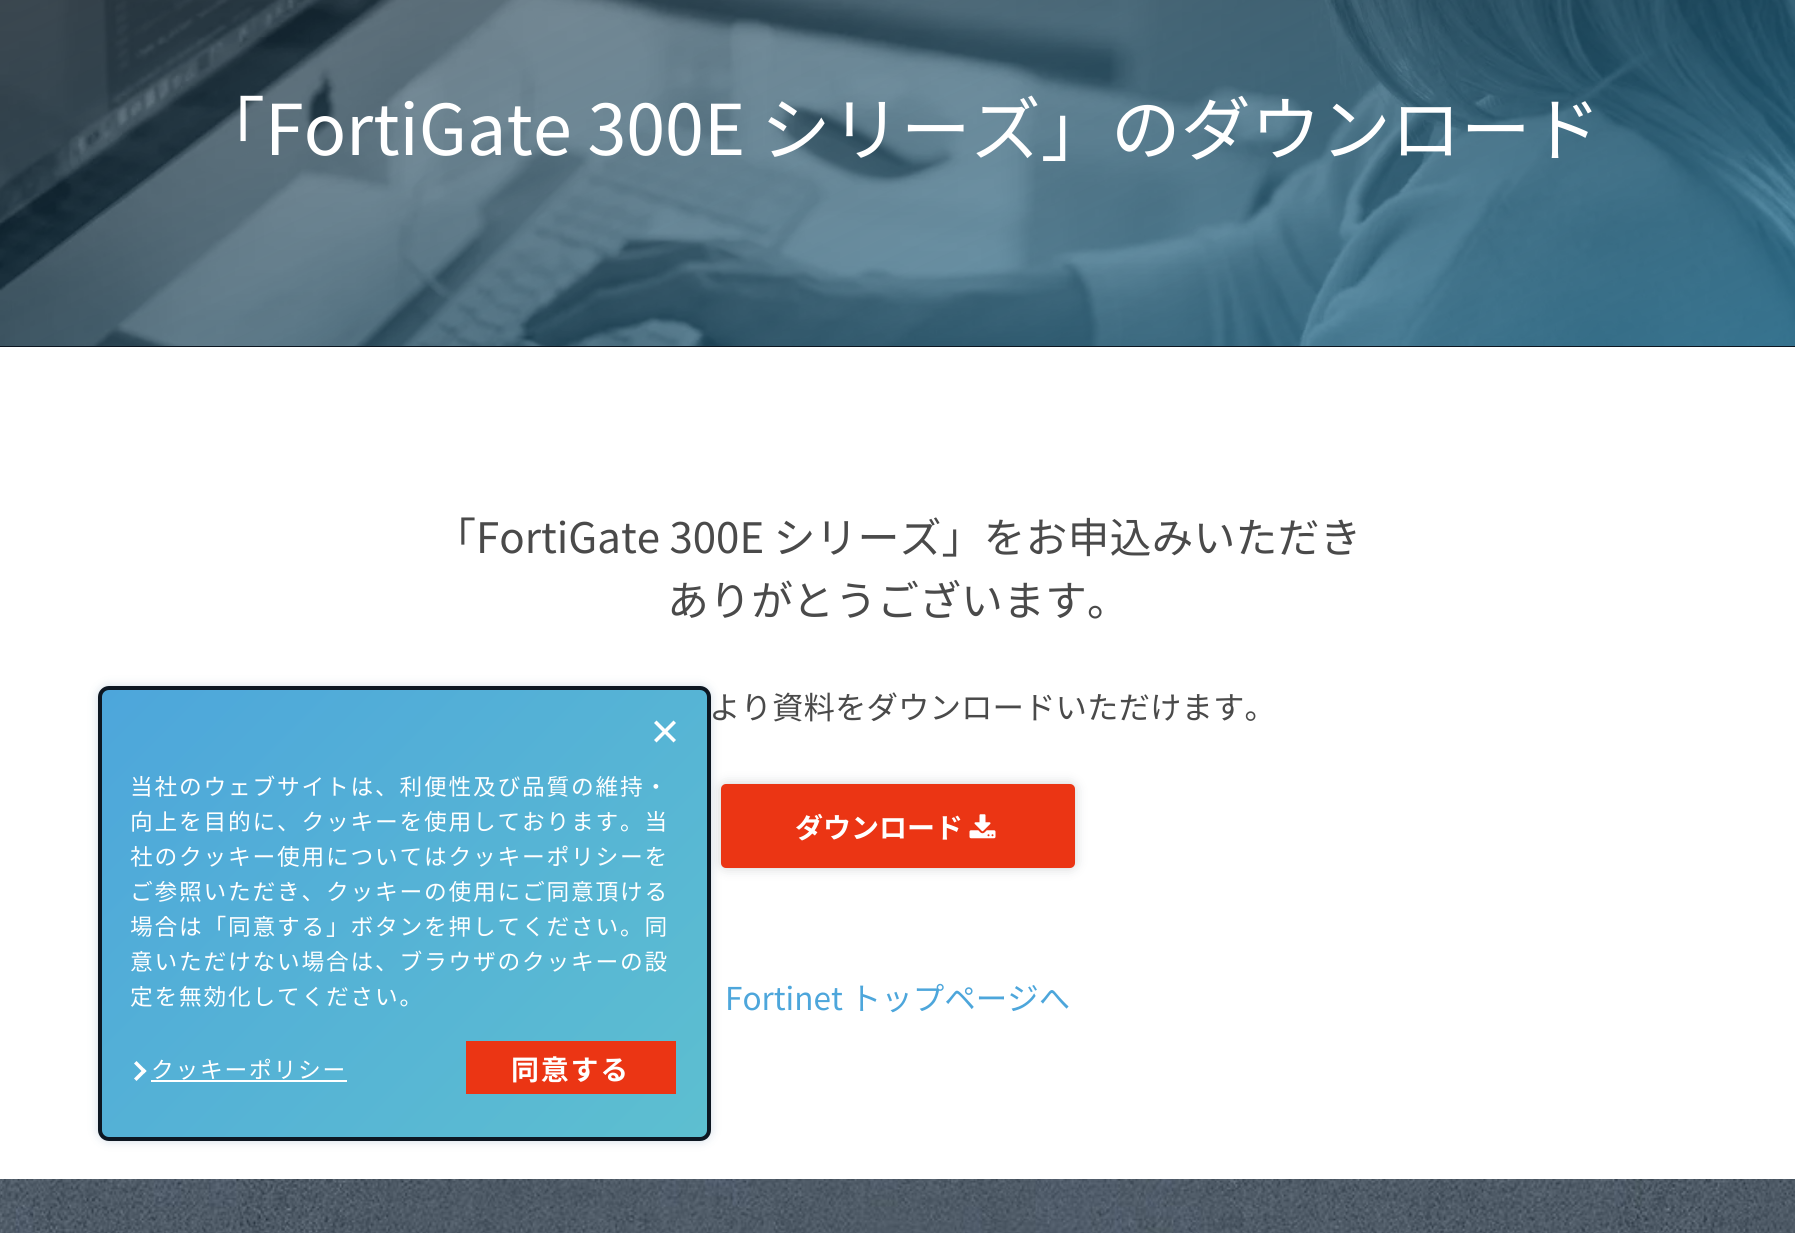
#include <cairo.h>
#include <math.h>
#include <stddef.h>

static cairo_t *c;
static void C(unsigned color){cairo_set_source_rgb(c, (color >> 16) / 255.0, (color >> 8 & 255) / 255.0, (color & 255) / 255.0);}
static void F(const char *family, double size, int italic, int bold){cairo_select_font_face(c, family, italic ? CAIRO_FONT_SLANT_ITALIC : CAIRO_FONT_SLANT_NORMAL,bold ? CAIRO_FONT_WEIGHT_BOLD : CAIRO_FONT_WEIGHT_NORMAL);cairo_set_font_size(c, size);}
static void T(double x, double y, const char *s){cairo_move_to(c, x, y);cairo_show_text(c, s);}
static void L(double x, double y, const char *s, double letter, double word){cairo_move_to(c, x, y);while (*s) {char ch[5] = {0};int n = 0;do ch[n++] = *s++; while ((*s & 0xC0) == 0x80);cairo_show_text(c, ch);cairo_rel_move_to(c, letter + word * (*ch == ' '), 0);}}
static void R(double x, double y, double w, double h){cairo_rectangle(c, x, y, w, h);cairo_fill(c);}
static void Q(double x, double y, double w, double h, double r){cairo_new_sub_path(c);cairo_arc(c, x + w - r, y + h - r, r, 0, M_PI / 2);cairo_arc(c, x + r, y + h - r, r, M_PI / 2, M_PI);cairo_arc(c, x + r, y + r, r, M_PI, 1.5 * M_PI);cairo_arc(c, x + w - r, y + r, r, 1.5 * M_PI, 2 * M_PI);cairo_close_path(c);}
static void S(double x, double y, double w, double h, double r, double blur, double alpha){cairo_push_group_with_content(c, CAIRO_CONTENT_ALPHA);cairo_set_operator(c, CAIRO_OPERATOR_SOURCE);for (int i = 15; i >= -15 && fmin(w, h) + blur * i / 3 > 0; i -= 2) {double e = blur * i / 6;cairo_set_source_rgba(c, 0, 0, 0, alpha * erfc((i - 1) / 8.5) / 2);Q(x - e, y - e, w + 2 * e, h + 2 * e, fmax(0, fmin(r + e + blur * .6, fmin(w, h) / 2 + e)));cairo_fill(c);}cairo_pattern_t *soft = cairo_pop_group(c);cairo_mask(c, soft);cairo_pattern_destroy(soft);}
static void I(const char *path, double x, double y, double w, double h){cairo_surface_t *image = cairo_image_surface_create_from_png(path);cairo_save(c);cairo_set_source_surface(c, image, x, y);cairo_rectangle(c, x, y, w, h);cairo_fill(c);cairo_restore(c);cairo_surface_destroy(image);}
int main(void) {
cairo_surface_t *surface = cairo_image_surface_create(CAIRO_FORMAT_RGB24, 1795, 1233);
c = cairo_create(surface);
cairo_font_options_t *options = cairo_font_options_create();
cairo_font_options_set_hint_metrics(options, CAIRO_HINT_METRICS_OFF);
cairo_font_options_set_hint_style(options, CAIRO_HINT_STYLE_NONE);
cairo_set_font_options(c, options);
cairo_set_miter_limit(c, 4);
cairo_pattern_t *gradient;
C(0xffffff);
cairo_paint(c);
C(0x0d1722);
R(0,346,1795,1);
I("1.png",0,0,1795,346);
F("Noto Sans CJK JP",70,0,0);
C(0xffffff);
T(195,155,"「FortiGate 300E シリーズ」のダウンロード");
F("Noto Sans CJK JP",42,0,0);
C(0x4a4a4a);
T(434,553,"「FortiGate 300E シリーズ」をお申込みいただき");
T(667,616,"ありがとうございます。");
F("Noto Sans CJK JP",31.5,0,0);
T(709,719,"より資料をダウンロードいただけます。");
C(0x0d1722);
S(721,784,354,84,5,6,.2);
C(0xeb3514);
Q(721,784,354,84,5);
cairo_fill(c);
F("Noto Sans CJK JP",28,0,1);
C(0xffffff);
T(795,838,"ダウンロード");
I("2.png",969,814,27,25);
F("Noto Sans CJK JP",31.5,0,0);
C(0x4da6db);
T(725,1010,"Fortinet トップページへ");
I("3.png",0,1179,1795,54);
C(0x134c7f);
S(98,686,613,455,11,5,.2);
gradient = cairo_pattern_create_linear(141,650,668,1177);
cairo_pattern_add_color_stop_rgba(gradient,0,0.302,0.651,0.859,1);
cairo_pattern_add_color_stop_rgba(gradient,1,0.365,0.749,0.816,1);
cairo_set_source(c,gradient);
cairo_pattern_destroy(gradient);
R(102,690,605,447);
cairo_save(c);
Q(98,686,613,455,11);
cairo_clip(c);
gradient = cairo_pattern_create_linear(-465,1098,62,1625);
cairo_pattern_add_color_stop_rgba(gradient,0,0.302,0.651,0.859,1);
cairo_pattern_add_color_stop_rgba(gradient,1,0.365,0.749,0.816,1);
cairo_set_source(c,gradient);
cairo_pattern_destroy(gradient);
R(98,1138,4,1);
gradient = cairo_pattern_create_linear(746,1098,1273,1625);
cairo_pattern_add_color_stop_rgba(gradient,0,0.302,0.651,0.859,1);
cairo_pattern_add_color_stop_rgba(gradient,1,0.365,0.749,0.816,1);
cairo_set_source(c,gradient);
cairo_pattern_destroy(gradient);
R(707,1138,4,1);
cairo_restore(c);
Q(100,688,609,451,9);
C(0x0d1722);
cairo_set_line_width(c,4);
cairo_stroke(c);
C(0xffffff);
cairo_new_path(c);
cairo_move_to(c,673.5,720.5);
cairo_line_to(c,676,723);
cairo_line_to(c,656.5,742.5);
cairo_line_to(c,654,740);
cairo_close_path(c);
cairo_fill(c);
cairo_new_path(c);
cairo_move_to(c,654,723);
cairo_line_to(c,656.5,720.5);
cairo_line_to(c,676,740);
cairo_line_to(c,673.5,742.5);
cairo_close_path(c);
cairo_fill(c);
F("Noto Sans CJK JP",22.75,0,0);
L(130,795,"当社のウェブサイトは、利便性及び品質の維持・",1.75,0);
L(130,830,"向上を目的に、クッキーを使用しております。当",1.75,0);
L(130,865,"社のクッキー使用についてはクッキーポリシーを",1.75,0);
L(130,900,"ご参照いただき、クッキーの使用にご同意頂ける",1.75,0);
L(130,935,"場合は「同意する」ボタンを押してください。同",1.75,0);
L(130,970,"意いただけない場合は、ブラウザのクッキーの設",1.75,0);
L(130,1005,"定を無効化してください。",1.75,0);
cairo_new_path(c);
cairo_move_to(c,136.5,1061);
cairo_line_to(c,146.5,1071);
cairo_line_to(c,144,1073.5);
cairo_line_to(c,134,1063.5);
cairo_close_path(c);
cairo_fill(c);
cairo_new_path(c);
cairo_move_to(c,144,1068.5);
cairo_line_to(c,146.5,1071);
cairo_line_to(c,136.5,1081);
cairo_line_to(c,134,1078.5);
cairo_close_path(c);
cairo_fill(c);
L(151,1078,"クッキーポリシー",1.75,0);
R(151,1080,196,2);
C(0xeb3514);
R(466,1041,210,53);
F("Noto Sans CJK JP",28,0,1);
C(0xffffff);
L(511,1080,"同意する",1.75,0);
cairo_surface_write_to_png(surface, "o.png");
cairo_font_options_destroy(options);
cairo_destroy(c);
cairo_surface_destroy(surface);
return 0;
}
